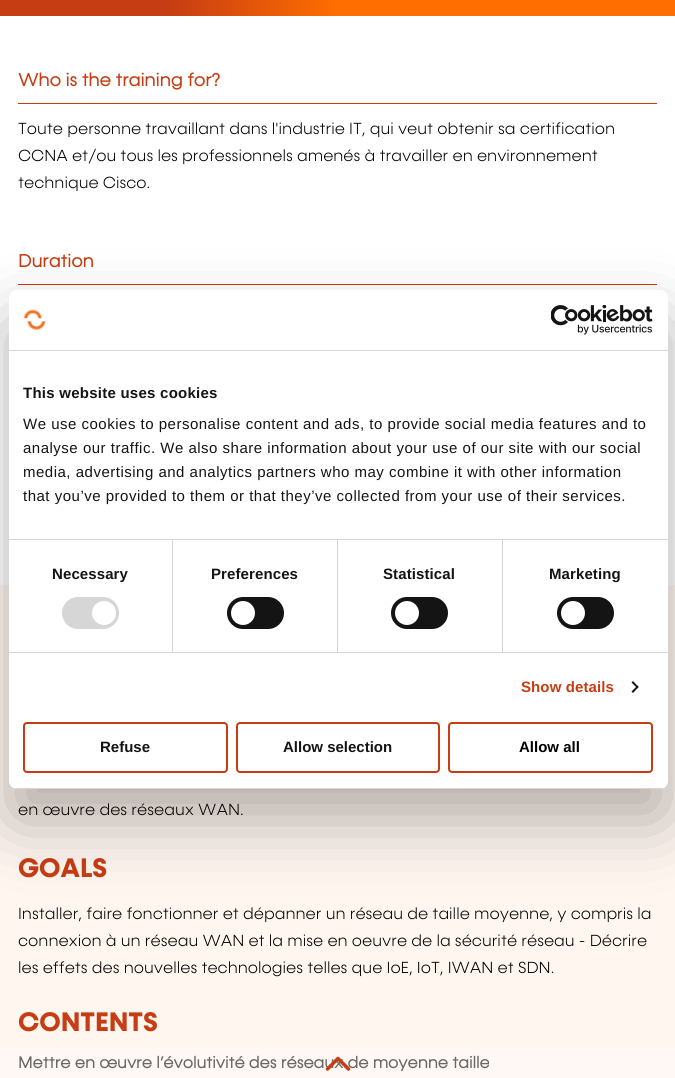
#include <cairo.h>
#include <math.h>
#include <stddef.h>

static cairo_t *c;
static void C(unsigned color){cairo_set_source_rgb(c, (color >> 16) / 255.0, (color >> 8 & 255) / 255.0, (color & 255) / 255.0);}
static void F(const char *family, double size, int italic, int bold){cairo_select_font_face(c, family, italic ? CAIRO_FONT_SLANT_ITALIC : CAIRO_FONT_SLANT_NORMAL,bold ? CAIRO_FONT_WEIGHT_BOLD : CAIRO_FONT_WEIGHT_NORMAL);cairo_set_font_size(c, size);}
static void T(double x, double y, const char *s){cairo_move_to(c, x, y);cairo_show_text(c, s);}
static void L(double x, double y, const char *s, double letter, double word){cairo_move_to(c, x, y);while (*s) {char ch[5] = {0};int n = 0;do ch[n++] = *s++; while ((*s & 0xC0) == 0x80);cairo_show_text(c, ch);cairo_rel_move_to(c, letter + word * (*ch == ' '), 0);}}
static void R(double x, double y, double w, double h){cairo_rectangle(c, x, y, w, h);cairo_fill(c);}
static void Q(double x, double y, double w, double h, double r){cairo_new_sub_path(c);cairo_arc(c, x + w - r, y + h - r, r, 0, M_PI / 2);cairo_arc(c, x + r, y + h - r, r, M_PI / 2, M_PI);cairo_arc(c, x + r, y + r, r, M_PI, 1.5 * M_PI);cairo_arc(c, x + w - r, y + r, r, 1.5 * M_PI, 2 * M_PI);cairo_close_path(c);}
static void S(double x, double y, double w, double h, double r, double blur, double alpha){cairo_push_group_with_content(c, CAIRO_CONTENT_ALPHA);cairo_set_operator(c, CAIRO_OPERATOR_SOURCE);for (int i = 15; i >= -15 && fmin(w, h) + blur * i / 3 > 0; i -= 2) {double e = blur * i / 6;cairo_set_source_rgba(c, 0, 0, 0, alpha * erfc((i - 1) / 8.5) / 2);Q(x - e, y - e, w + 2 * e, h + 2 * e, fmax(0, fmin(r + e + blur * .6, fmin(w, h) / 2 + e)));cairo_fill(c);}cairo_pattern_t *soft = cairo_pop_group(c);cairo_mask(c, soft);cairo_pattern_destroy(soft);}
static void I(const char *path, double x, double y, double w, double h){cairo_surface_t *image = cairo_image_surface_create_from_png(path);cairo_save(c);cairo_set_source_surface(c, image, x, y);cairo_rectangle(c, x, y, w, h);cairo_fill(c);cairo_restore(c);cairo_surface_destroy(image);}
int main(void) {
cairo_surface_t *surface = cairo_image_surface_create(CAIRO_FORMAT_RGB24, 675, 1078);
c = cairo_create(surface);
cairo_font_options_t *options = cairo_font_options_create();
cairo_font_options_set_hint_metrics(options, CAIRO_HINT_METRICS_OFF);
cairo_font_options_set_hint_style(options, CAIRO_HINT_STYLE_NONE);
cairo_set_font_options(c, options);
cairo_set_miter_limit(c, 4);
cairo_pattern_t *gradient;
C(0xffffff);
cairo_paint(c);
gradient = cairo_pattern_create_linear(0,-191,675,-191);
cairo_pattern_add_color_stop_rgba(gradient,.25,0.78,0.239,0.075,1);
cairo_pattern_add_color_stop_rgba(gradient,.5,1,0.431,0,1);
cairo_set_source(c,gradient);
cairo_pattern_destroy(gradient);
R(0,0,675,16);
C(0xc73d13);
R(18,103,639,1);
F("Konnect",18,0,1);
T(18,86,"Who is the training for?");
F("Konnect Light",16.2,0,0);
C(0x000000);
T(18,134,"Toute personne travaillant dans l'industrie IT, qui veut obtenir sa certification");
T(18,161,"CCNA et/ou tous les professionnels amenés à travailler en environnement");
T(18,188,"technique Cisco.");
C(0xc73d13);
R(18,284,639,1);
F("Konnect",18,0,1);
T(18,267,"Duration");
C(0xfff6f0);
R(0,585,675,463);
C(0xfff8f4);
R(0,1048,675,30);
F("Konnect Light",16.2,0,0);
C(0x000000);
T(18,815,"en œuvre des réseaux WAN.");
F("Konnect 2",27,0,1);
C(0xc73d13);
T(18,877,"GOALS");
F("Konnect Light",16.2,0,0);
C(0x000000);
T(18,919,"Installer, faire fonctionner et dépanner un réseau de taille moyenne, y compris la");
T(18,946,"connexion à un réseau WAN et la mise en oeuvre de la sécurité réseau - Décrire");
T(18,973,"les effets des nouvelles technologies telles que IoE, IoT, IWAN et SDN.");
F("Konnect 2",27,0,1);
C(0xc73d13);
T(18,1031,"CONTENTS");
F("Konnect",16.2,0,1);
C(0x686868);
T(18,1068,"Mettre en œuvre l’évolutivité des réseaux de moyenne taille");
I("1.png",325,1056,26,15);
C(0x000000);
S(9,322,659,499,8,34,.3);
C(0xffffff);
Q(9,290,659,499,8);
cairo_fill(c);
C(0xd6d6d6);
R(9,350,659,1);
I("2.png",23,309,23,22);
I("3.png",551,305,102,30);
R(9,539,659,1);
F("Liberation Sans",15,0,1);
C(0x141414);
L(23,398,"This website uses cookies",.25,0);
F("Liberation Sans",15,0,0);
L(23,429,"We use cookies to personalise content and ads, to provide social media features and to",.5,0);
L(23,453,"analyse our traffic. We also share information about your use of our site with our social",.5,0);
L(23,477,"media, advertising and analytics partners who may combine it with other information",.5,0);
L(23,501,"that you’ve provided to them or that they’ve collected from your use of their services.",.5,0);
C(0xd6d6d6);
R(9,652,659,1);
R(172,540,1,112);
F("Liberation Sans",15,0,1);
C(0x141414);
L(52,579,"Necessary",.1,0);
C(0xd6d6d6);
Q(62,597,57,32,16);
cairo_fill(c);
C(0xffffff);
cairo_arc(c,104,613,12,0,2 * M_PI);
cairo_fill(c);
C(0xd6d6d6);
R(337,540,1,112);
C(0x141414);
L(211,579,"Preferences",.1,0);
Q(227,597,57,32,16);
cairo_fill(c);
C(0xffffff);
cairo_arc(c,243,613,12,0,2 * M_PI);
cairo_fill(c);
C(0xd6d6d6);
R(502,540,1,112);
C(0x141414);
L(383,579,"Statistical",.1,0);
Q(391,597,57,32,16);
cairo_fill(c);
C(0xffffff);
cairo_arc(c,407,613,12,0,2 * M_PI);
cairo_fill(c);
C(0x141414);
L(549,579,"Marketing",.1,0);
Q(557,597,57,32,16);
cairo_fill(c);
C(0xffffff);
cairo_arc(c,573,613,12,0,2 * M_PI);
cairo_fill(c);
C(0xc73d13);
L(521,692,"Show details",.1,0);
C(0x141414);
cairo_new_path(c);
cairo_move_to(c,633,681);
cairo_line_to(c,638.5,687);
cairo_line_to(c,637.5,688.5);
cairo_line_to(c,631.5,682.5);
cairo_close_path(c);
cairo_fill(c);
cairo_new_path(c);
cairo_move_to(c,637.5,685.5);
cairo_line_to(c,638.5,687);
cairo_line_to(c,633,693);
cairo_line_to(c,631.5,691.5);
cairo_close_path(c);
cairo_fill(c);
cairo_save(c);
Q(9,290,659,499,8);
cairo_clip(c);
C(0xd6d6d6);
R(9,788,659,1);
cairo_restore(c);
Q(24,723,203,49,3);
C(0xc73d13);
cairo_stroke(c);
C(0x141414);
T(100,752,"Refuse");
Q(237,723,202,49,3);
C(0xc73d13);
cairo_stroke(c);
C(0x141414);
T(283,752,"Allow selection");
Q(449,723,203,49,3);
C(0xc73d13);
cairo_stroke(c);
C(0x000000);
T(519,752,"Allow all");
cairo_surface_write_to_png(surface, "o.png");
cairo_font_options_destroy(options);
cairo_destroy(c);
cairo_surface_destroy(surface);
return 0;
}
